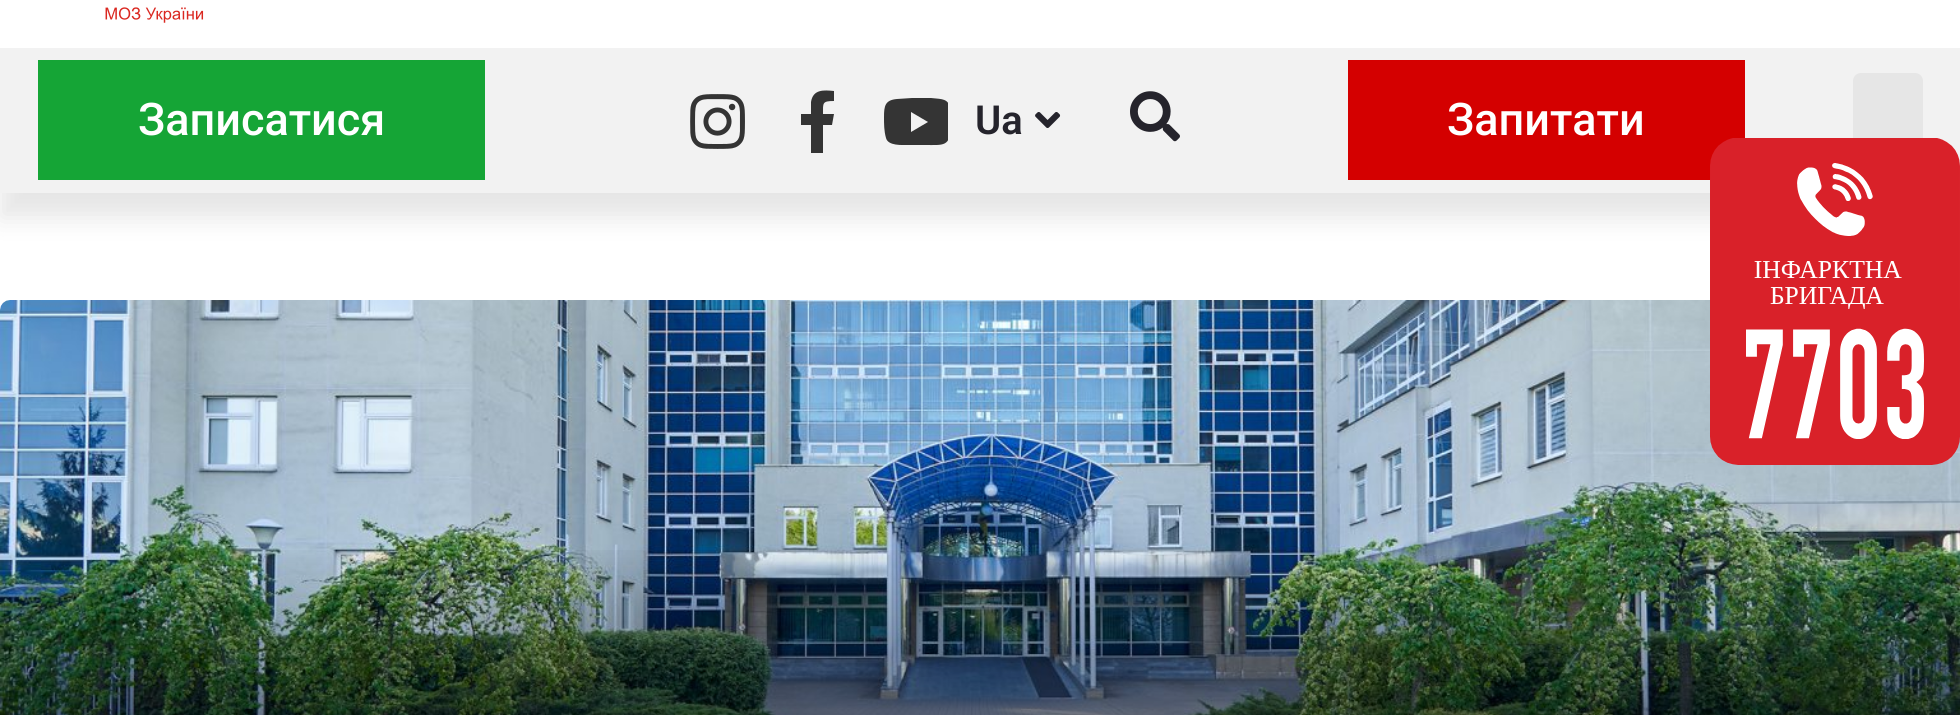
#include <cairo.h>
#include <math.h>
#include <stddef.h>

static cairo_t *c;
static void C(unsigned color){cairo_set_source_rgb(c, (color >> 16) / 255.0, (color >> 8 & 255) / 255.0, (color & 255) / 255.0);}
static void F(const char *family, double size, int italic, int bold){cairo_select_font_face(c, family, italic ? CAIRO_FONT_SLANT_ITALIC : CAIRO_FONT_SLANT_NORMAL,bold ? CAIRO_FONT_WEIGHT_BOLD : CAIRO_FONT_WEIGHT_NORMAL);cairo_set_font_size(c, size);}
static void T(double x, double y, const char *s){cairo_move_to(c, x, y);cairo_show_text(c, s);}
static void R(double x, double y, double w, double h){cairo_rectangle(c, x, y, w, h);cairo_fill(c);}
static void Q(double x, double y, double w, double h, double r){cairo_new_sub_path(c);cairo_arc(c, x + w - r, y + h - r, r, 0, M_PI / 2);cairo_arc(c, x + r, y + h - r, r, M_PI / 2, M_PI);cairo_arc(c, x + r, y + r, r, M_PI, 1.5 * M_PI);cairo_arc(c, x + w - r, y + r, r, 1.5 * M_PI, 2 * M_PI);cairo_close_path(c);}
static void S(double x, double y, double w, double h, double r, double blur, double alpha){cairo_push_group_with_content(c, CAIRO_CONTENT_ALPHA);cairo_set_operator(c, CAIRO_OPERATOR_SOURCE);for (int i = 15; i >= -15 && fmin(w, h) + blur * i / 3 > 0; i -= 2) {double e = blur * i / 6;cairo_set_source_rgba(c, 0, 0, 0, alpha * erfc((i - 1) / 8.5) / 2);Q(x - e, y - e, w + 2 * e, h + 2 * e, fmax(0, fmin(r + e + blur * .6, fmin(w, h) / 2 + e)));cairo_fill(c);}cairo_pattern_t *soft = cairo_pop_group(c);cairo_mask(c, soft);cairo_pattern_destroy(soft);}
static void I(const char *path, double x, double y, double w, double h){cairo_surface_t *image = cairo_image_surface_create_from_png(path);cairo_save(c);cairo_set_source_surface(c, image, x, y);cairo_rectangle(c, x, y, w, h);cairo_fill(c);cairo_restore(c);cairo_surface_destroy(image);}
int main(void) {
cairo_surface_t *surface = cairo_image_surface_create(CAIRO_FORMAT_RGB24, 1960, 715);
c = cairo_create(surface);
cairo_font_options_t *options = cairo_font_options_create();
cairo_font_options_set_hint_metrics(options, CAIRO_HINT_METRICS_OFF);
cairo_font_options_set_hint_style(options, CAIRO_HINT_STYLE_NONE);
cairo_set_font_options(c, options);
cairo_set_miter_limit(c, 4);
cairo_pattern_t *gradient;
C(0xffffff);
cairo_paint(c);
I("1.png",105,7,99,16);
C(0x000000);
S(0,73,1960,145,0,12.5,.1);
C(0xf2f2f2);
R(0,48,1960,145);
C(0x15a536);
R(38,60,447,120);
F("Roboto Medium",45,0,0);
C(0xffffff);
T(138,135,"Записатися");
I("2.png",690,94,55,55);
C(0x343434);
cairo_new_path(c);
cairo_move_to(c,832,125);
cairo_line_to(c,823,125);
cairo_line_to(c,823,153);
cairo_line_to(c,811,153);
cairo_line_to(c,811,125);
cairo_line_to(c,801,125);
cairo_line_to(c,801,114);
cairo_line_to(c,811,114);
cairo_line_to(c,811,102);
cairo_curve_to(c,813,89,824,90,834,91);
cairo_line_to(c,834,101);
cairo_curve_to(c,822,101,823,103,823,114);
cairo_line_to(c,834,114);
cairo_close_path(c);
cairo_fill(c);
cairo_new_path(c);
cairo_move_to(c,949,105);
cairo_curve_to(c,951,112,951,119,951,126);
cairo_curve_to(c,950,147,944,145,925,145);
cairo_line_to(c,908,145);
cairo_curve_to(c,902,145,888,146,886,138);
cairo_curve_to(c,884,131,884,124,884,117);
cairo_curve_to(c,884,106,885,100,897,99);
cairo_line_to(c,912,98);
cairo_line_to(c,931,98);
cairo_curve_to(c,938,99,947,98,949,105);
cairo_close_path(c);
cairo_move_to(c,911,132);
cairo_line_to(c,928,122);
cairo_line_to(c,911,112);
cairo_close_path(c);
cairo_fill(c);
C(0xf2f2f2);
R(948,103,3,38);
F("Roboto SemiBold",40,0,0);
C(0x25242c);
T(975,134,"Ua");
I("3.png",1035,112,26,16);
I("4.png",1130,91,50,51);
C(0xd40000);
R(1348,60,397,120);
F("Roboto Medium",45,0,0);
C(0xffffff);
T(1447,135,"Запитати");
C(0xe6e6e6);
Q(1853,73,70,82,8);
cairo_fill(c);
I("6.png",0,300,1960,415);
I("5.png",1710,138,250,327);
gradient = cairo_pattern_create_linear(980,300,980,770);
cairo_pattern_add_color_stop_rgba(gradient,.51,0,0,0,0);
cairo_pattern_add_color_stop_rgba(gradient,.81,0,0,0,.31);
cairo_pattern_add_color_stop_rgba(gradient,1,0,0,0,.5);
cairo_set_source(c,gradient);
cairo_pattern_destroy(gradient);
R(0,550,1960,165);
cairo_surface_write_to_png(surface, "o.png");
cairo_font_options_destroy(options);
cairo_destroy(c);
cairo_surface_destroy(surface);
return 0;
}
